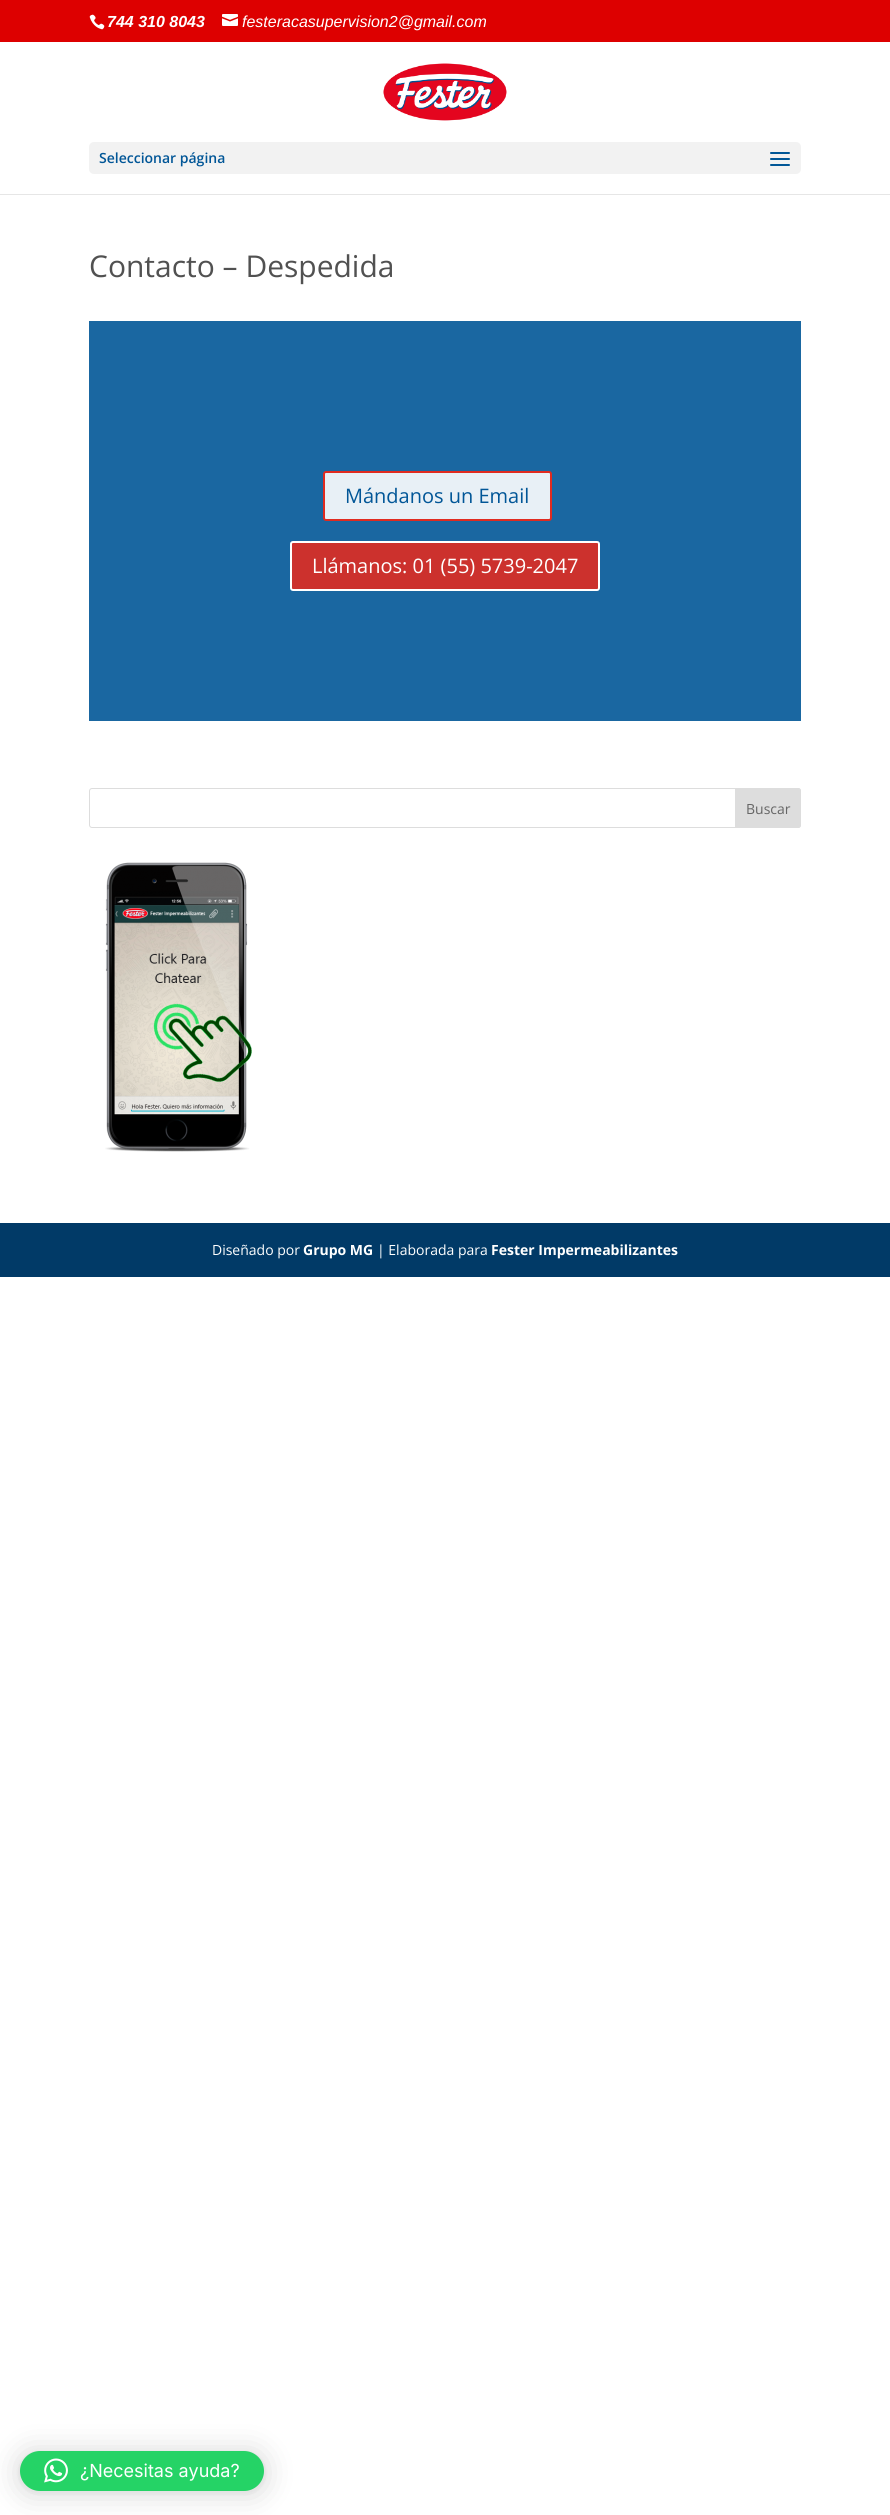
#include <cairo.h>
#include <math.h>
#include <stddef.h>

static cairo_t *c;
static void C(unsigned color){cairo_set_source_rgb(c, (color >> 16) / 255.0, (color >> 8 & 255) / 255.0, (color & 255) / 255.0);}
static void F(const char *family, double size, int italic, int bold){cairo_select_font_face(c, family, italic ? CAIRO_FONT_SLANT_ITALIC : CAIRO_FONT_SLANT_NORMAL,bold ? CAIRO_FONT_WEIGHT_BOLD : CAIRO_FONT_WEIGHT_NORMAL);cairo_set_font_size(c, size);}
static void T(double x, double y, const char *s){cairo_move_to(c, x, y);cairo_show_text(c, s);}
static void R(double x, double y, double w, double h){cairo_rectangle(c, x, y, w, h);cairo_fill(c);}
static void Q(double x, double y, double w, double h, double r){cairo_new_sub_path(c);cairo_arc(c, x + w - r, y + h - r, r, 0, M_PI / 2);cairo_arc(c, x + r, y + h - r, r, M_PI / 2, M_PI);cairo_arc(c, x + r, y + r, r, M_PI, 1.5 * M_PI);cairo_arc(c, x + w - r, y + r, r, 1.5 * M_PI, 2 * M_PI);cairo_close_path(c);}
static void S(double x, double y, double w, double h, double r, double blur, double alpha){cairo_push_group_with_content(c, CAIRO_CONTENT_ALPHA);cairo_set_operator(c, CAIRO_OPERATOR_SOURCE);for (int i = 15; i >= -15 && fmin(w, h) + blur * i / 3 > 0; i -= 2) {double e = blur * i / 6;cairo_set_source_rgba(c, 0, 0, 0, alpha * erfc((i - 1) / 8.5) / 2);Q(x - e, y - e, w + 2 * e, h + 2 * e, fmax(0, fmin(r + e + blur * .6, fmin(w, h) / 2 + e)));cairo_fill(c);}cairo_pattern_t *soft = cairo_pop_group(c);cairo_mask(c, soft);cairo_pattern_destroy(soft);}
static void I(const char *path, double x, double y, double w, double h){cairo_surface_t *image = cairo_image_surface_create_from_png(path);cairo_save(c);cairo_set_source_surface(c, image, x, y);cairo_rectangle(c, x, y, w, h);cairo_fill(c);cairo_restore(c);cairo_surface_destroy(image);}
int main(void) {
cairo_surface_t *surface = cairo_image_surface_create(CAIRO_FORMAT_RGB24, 890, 2515);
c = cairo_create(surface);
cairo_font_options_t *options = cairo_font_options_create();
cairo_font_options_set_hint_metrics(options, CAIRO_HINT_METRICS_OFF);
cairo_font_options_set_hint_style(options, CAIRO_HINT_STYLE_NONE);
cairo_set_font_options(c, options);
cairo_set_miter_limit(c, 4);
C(0xffffff);
cairo_paint(c);
C(0xdd0000);
R(0,0,890,42);
I("1.png",89,14,16,16);
F("Liberation Sans",16,1,1);
C(0xffffff);
T(107,27,"744 310 8043");
I("2.png",222,14,16,12);
F("Liberation Sans",16,1,0);
T(242,27,"festeracasupervision2@gmail.com");
C(0xe6e6e6);
R(0,194,890,1);
I("3.png",383,63,124,58);
C(0xf2f2f2);
Q(89,142,712,32,5);
cairo_fill(c);
F("Open Sans SemiBold",14,0,0);
C(0x015697);
T(99,163,"Seleccionar página");
I("4.png",770,152,20,14);
F("Open Sans",30,0,0);
C(0x515151);
T(89,277,"Contacto – Despedida");
C(0x1a67a1);
R(89,321,712,400);
C(0xe8f0f6);
Q(324,472,227,48,2);
cairo_fill_preserve(c);
C(0xe02b20);
cairo_stroke(c);
F("Open Sans",20,0,0);
C(0x015697);
T(345,503,"Mándanos un Email");
C(0xcc312d);
Q(291,542,308,48,2);
cairo_fill_preserve(c);
C(0xffffff);
cairo_stroke(c);
T(312,573,"Llámanos: 01 (55) 5739-2047");
Q(89.5,788.5,711,39,2.5);
C(0xdddddd);
cairo_set_line_width(c,1);
cairo_stroke(c);
cairo_new_path(c);
cairo_move_to(c,735.5,788.5);
cairo_line_to(c,798,788.5);
cairo_curve_to(c,799.5,788.5,800.5,789.5,800.5,791);
cairo_line_to(c,800.5,825);
cairo_curve_to(c,800.5,826.5,799.5,827.5,798,827.5);
cairo_line_to(c,735.5,827.5);
cairo_close_path(c);
cairo_fill_preserve(c);
cairo_stroke(c);
F("Open Sans",14,0,0);
C(0x666666);
T(746,814,"Buscar");
I("5.png",105,862,147,290);
C(0x013a67);
R(0,1223,890,54);
C(0xffffff);
T(212,1255,"Diseñado por");
F("Open Sans",14,0,1);
T(303,1255,"Grupo MG");
F("Open Sans",14,0,0);
T(377,1255,"| Elaborada para");
F("Open Sans",14,0,1);
T(491,1255,"Fester Impermeabilizantes");
C(0x000000);
S(20,2453,244,40,20,16,.16);
S(20,2452,244,40,20,3,.06);
C(0x25d366);
Q(20,2451,244,40,20);
cairo_fill(c);
I("6.png",44,2458,24,25);
F("Inter",18,0,0);
C(0xffffff);
T(80,2477,"¿Necesitas ayuda?");
cairo_surface_write_to_png(surface, "o.png");
cairo_font_options_destroy(options);
cairo_destroy(c);
cairo_surface_destroy(surface);
return 0;
}
